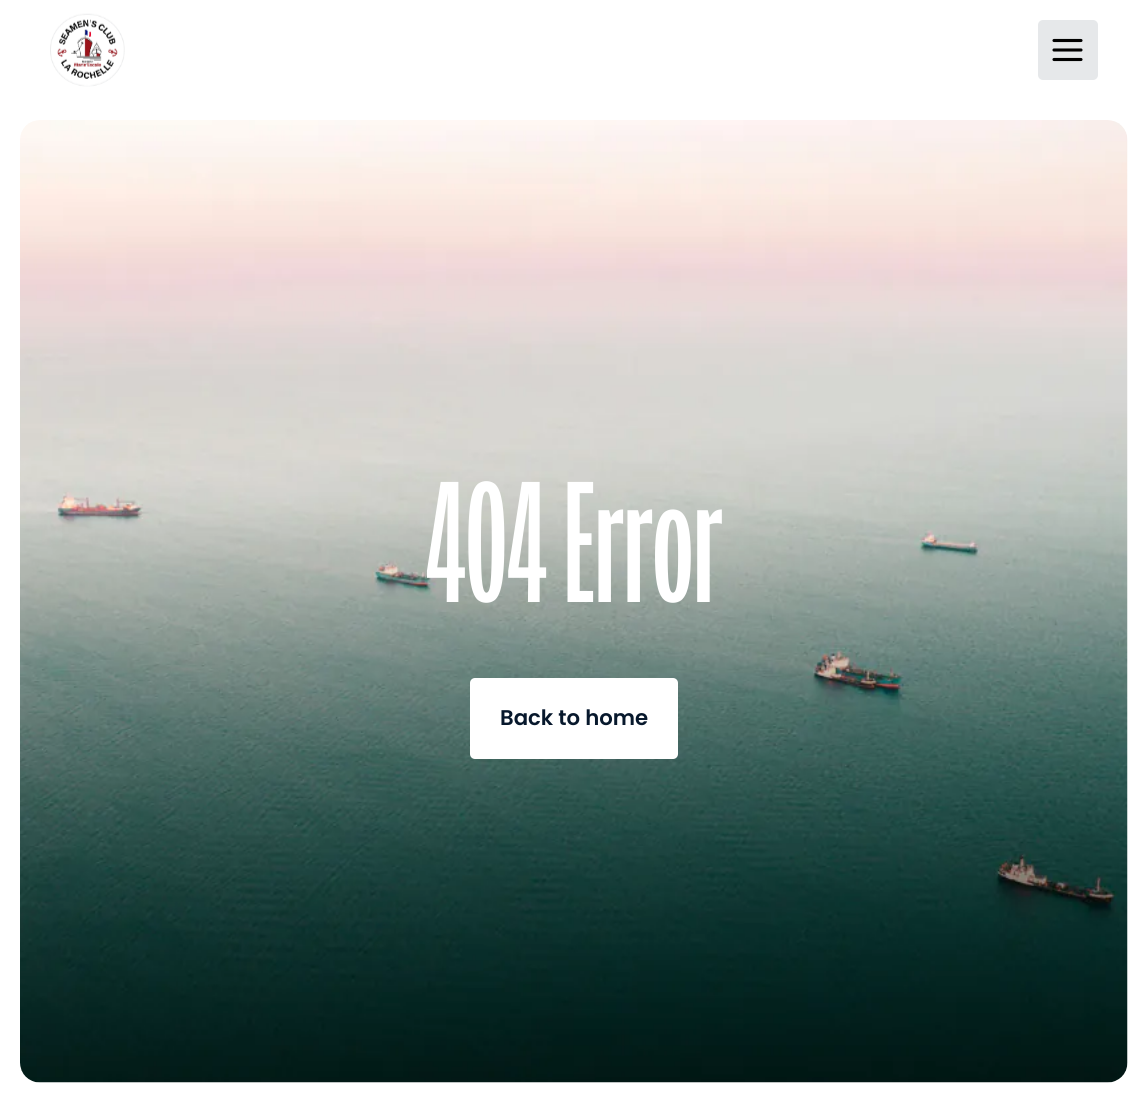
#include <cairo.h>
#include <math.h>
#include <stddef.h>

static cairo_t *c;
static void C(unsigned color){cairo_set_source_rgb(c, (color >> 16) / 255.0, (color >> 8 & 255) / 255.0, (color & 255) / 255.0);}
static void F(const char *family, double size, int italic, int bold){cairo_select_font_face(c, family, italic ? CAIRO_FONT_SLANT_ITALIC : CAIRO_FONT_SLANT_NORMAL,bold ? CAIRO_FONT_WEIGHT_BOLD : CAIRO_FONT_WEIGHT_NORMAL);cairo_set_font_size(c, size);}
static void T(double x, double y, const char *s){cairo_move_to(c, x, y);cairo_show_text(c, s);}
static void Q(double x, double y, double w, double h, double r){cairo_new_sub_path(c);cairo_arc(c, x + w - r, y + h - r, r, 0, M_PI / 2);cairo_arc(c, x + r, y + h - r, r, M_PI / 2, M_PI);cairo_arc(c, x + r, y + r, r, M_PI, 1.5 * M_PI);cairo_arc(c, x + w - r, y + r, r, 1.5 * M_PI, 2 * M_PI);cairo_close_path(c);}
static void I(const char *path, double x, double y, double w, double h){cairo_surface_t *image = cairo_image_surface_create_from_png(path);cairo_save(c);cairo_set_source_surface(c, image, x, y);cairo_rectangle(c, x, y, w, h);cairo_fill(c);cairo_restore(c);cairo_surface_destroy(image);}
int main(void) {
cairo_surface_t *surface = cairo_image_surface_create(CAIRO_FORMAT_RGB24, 1147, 1102);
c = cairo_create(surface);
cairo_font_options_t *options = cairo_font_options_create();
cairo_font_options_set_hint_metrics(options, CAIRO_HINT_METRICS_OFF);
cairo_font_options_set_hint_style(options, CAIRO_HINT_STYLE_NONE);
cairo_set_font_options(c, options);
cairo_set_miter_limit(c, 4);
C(0xffffff);
cairo_paint(c);
I("1.png",50,13,75,74);
C(0xe6e8ea);
Q(1038,20,60,60,5);
cairo_fill(c);
cairo_new_path(c);
cairo_move_to(c,1081,59.5);
cairo_line_to(c,1054,59.5);
cairo_move_to(c,1081,50);
cairo_line_to(c,1054,50);
cairo_move_to(c,1081,40.5);
cairo_line_to(c,1054,40.5);
C(0x000000);
cairo_set_line_width(c,3.1);
cairo_set_line_cap(c,CAIRO_LINE_CAP_ROUND);
cairo_set_line_join(c,CAIRO_LINE_JOIN_ROUND);
cairo_stroke(c);
I("2.png",20,120,1108,963);
F("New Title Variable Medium",158,0,0);
C(0xffffff);
T(426,602,"404 Error");
Q(470,678,208,81,5);
cairo_fill(c);
F("Poppins SemiBold",21.25,0,0);
C(0x07182c);
T(500,725,"Back to home");
cairo_surface_write_to_png(surface, "o.png");
cairo_font_options_destroy(options);
cairo_destroy(c);
cairo_surface_destroy(surface);
return 0;
}
